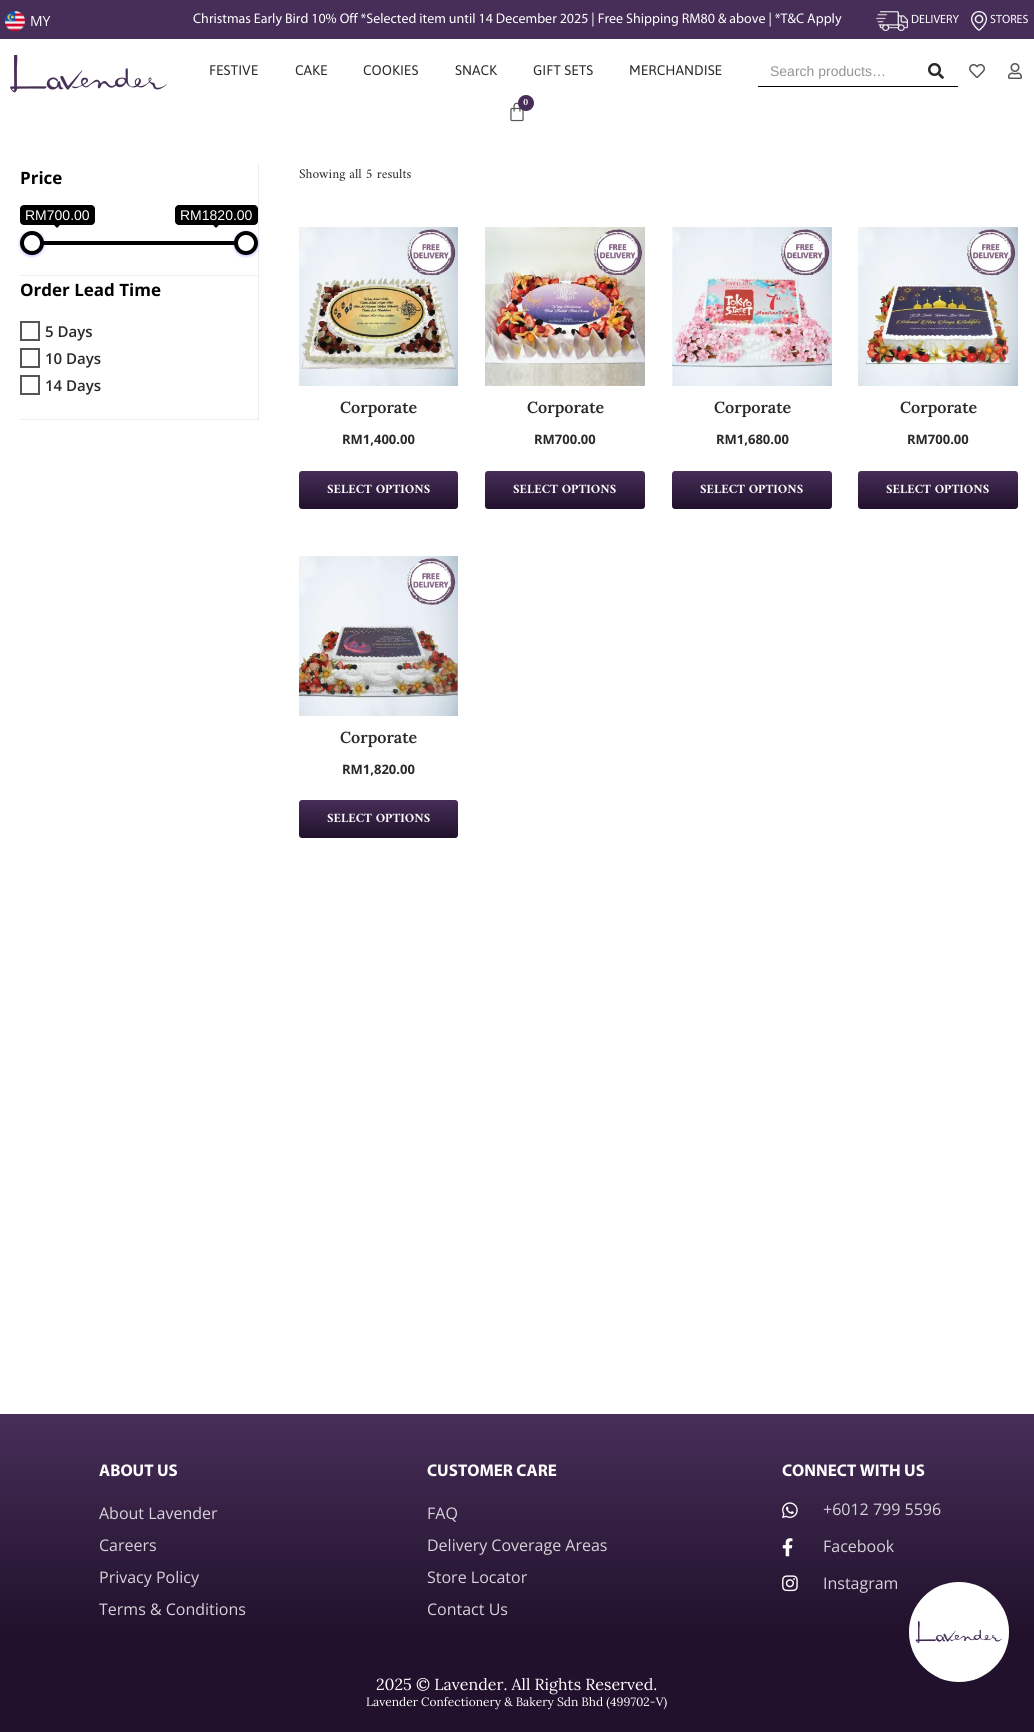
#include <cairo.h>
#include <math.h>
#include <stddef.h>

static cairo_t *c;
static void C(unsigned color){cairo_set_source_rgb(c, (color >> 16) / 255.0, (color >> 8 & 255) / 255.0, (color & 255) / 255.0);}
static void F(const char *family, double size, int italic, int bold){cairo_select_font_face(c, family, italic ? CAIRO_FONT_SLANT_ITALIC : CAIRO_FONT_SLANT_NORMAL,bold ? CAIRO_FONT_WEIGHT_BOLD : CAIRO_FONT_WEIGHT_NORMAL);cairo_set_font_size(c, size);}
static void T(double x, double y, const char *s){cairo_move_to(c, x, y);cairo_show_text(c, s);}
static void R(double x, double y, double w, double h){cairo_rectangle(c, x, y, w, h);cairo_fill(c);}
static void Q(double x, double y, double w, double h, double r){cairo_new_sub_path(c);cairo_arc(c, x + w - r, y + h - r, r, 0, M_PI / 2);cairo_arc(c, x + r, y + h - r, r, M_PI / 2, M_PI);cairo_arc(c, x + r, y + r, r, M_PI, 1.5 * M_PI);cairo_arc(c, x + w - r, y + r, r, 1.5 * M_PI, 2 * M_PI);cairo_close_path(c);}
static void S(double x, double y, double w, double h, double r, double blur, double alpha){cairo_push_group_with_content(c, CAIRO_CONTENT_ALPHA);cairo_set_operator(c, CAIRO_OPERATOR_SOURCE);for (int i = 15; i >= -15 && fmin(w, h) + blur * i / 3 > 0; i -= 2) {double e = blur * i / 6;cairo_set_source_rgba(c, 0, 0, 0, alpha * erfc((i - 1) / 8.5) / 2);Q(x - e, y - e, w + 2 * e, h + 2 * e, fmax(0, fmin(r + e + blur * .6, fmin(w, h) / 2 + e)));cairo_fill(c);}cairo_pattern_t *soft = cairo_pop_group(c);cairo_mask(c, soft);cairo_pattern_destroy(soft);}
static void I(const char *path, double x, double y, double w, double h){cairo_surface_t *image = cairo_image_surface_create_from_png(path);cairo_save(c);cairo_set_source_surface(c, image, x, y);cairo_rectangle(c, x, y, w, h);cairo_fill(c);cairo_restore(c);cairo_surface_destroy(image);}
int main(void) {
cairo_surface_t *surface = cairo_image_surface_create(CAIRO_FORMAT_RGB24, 1034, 1732);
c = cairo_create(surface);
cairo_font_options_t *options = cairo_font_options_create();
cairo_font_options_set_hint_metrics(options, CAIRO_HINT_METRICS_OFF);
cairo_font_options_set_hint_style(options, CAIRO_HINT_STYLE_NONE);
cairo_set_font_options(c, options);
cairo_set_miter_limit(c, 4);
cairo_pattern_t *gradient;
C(0xffffff);
cairo_paint(c);
C(0x472e58);
R(0,0,1034,39);
I("1.png",5,11,20,20);
F("Open Sans",14,0,0);
C(0xffffff);
T(30,26,"MY");
F("Myriad",14,0,0);
T(193,23,"Christmas Early Bird 10% Off *Selected item until 14 December 2025 | Free Shipping RM80 & above | *T&C Apply");
I("2.png",876,11,32,20);
F("Myriad",12,0,0);
T(911,23,"DELIVERY");
I("3.png",971,11,16,20);
T(990,23,"STORES");
I("4.png",10,55,157,38);
F("Jaldi",16,0,0);
C(0x292929);
T(209,75,"FESTIVE");
T(295,75,"CAKE");
T(363,75,"COOKIES");
T(455,75,"SNACK");
T(533,75,"GIFT SETS");
T(629,75,"MERCHANDISE");
C(0x000000);
R(758,86,200,1);
F("Liberation Sans",14,0,0);
C(0x949494);
T(770,76,"Search products…");
I("5.png",928,63,16,16);
I("6.png",969,64,16,14);
I("7.png",1008,63,14,16);
I("8.png",510,102,14,20);
C(0x472e58);
cairo_arc(c,526,103,8,0,2 * M_PI);
cairo_fill(c);
F("Amiri",10,0,1);
C(0xffffff);
T(523,105,"0");
C(0xededed);
R(258,164,1,256);
C(0xeeeeee);
R(20,275,238,1);
F("Open Sans",17,0,1);
C(0x000000);
T(20,184,"Price");
Q(20,205,75,20,4);
cairo_fill(c);
F("Liberation Sans",14,0,0);
C(0xffffff);
T(25,220,"RM700.00");
C(0x000000);
cairo_new_path(c);
cairo_move_to(c,54,225);
cairo_line_to(c,60,225);
cairo_line_to(c,57,228);
cairo_close_path(c);
cairo_fill(c);
Q(175,205,83,20,4);
cairo_fill(c);
C(0xffffff);
T(180,220,"RM1820.00");
C(0x000000);
cairo_new_path(c);
cairo_move_to(c,213,225);
cairo_line_to(c,219,225);
cairo_line_to(c,216,228);
cairo_close_path(c);
cairo_fill(c);
R(43,241,192,4);
C(0x0000ff);
S(20,232,24,24,12,1.5,.3);
C(0xffffff);
cairo_arc(c,32,243,10,0,2 * M_PI);
cairo_fill_preserve(c);
C(0x000000);
cairo_set_line_width(c,4);
cairo_stroke(c);
C(0x0000ff);
S(234,232,24,24,12,1.5,.3);
C(0xffffff);
cairo_arc(c,246,243,10,0,2 * M_PI);
cairo_fill_preserve(c);
C(0x000000);
cairo_stroke(c);
C(0xeeeeee);
R(20,419,238,1);
F("Open Sans",17,0,1);
C(0x000000);
T(20,296,"Order Lead Time");
cairo_rectangle(c,21,322,18,18);
C(0x555555);
cairo_set_line_width(c,2);
cairo_stroke(c);
F("Open Sans SemiBold",15,0,0);
C(0x292929);
T(45,337,"5 Days");
cairo_rectangle(c,21,349,18,18);
C(0x555555);
cairo_stroke(c);
C(0x292929);
T(45,364,"10 Days");
cairo_rectangle(c,21,376,18,18);
C(0x555555);
cairo_stroke(c);
C(0x292929);
T(45,391,"14 Days");
F("Amiri",13.5,0,0);
T(299,178,"Showing all 5 results");
I("9.png",299,227,159,159);
F("Lora SemiBold",16,0,0);
T(340,413,"Corporate");
F("Open Sans",13,0,1);
T(342,444,"RM1,400.00");
gradient = cairo_pattern_create_linear(379,471,379,509);
cairo_pattern_add_color_stop_rgba(gradient,0,0.278,0.18,0.345,1);
cairo_pattern_add_color_stop_rgba(gradient,1,0.129,0.067,0.173,1);
cairo_set_source(c,gradient);
cairo_pattern_destroy(gradient);
Q(299,471,159,38,3);
cairo_fill(c);
F("Amiri",12.75,0,1);
C(0xffffff);
T(327,493,"SELECT OPTIONS");
I("10.png",485,227,160,159);
F("Lora SemiBold",16,0,0);
C(0x292929);
T(527,413,"Corporate");
F("Open Sans",13,0,1);
T(534,444,"RM700.00");
gradient = cairo_pattern_create_linear(565,471,565,509);
cairo_pattern_add_color_stop_rgba(gradient,0,0.278,0.18,0.345,1);
cairo_pattern_add_color_stop_rgba(gradient,1,0.129,0.067,0.173,1);
cairo_set_source(c,gradient);
cairo_pattern_destroy(gradient);
Q(485,471,160,38,3);
cairo_fill(c);
F("Amiri",12.75,0,1);
C(0xffffff);
T(513,493,"SELECT OPTIONS");
I("11.png",672,227,160,159);
F("Lora SemiBold",16,0,0);
C(0x292929);
T(714,413,"Corporate");
F("Open Sans",13,0,1);
T(716,444,"RM1,680.00");
gradient = cairo_pattern_create_linear(752,471,752,509);
cairo_pattern_add_color_stop_rgba(gradient,0,0.278,0.18,0.345,1);
cairo_pattern_add_color_stop_rgba(gradient,1,0.129,0.067,0.173,1);
cairo_set_source(c,gradient);
cairo_pattern_destroy(gradient);
Q(672,471,160,38,3);
cairo_fill(c);
F("Amiri",12.75,0,1);
C(0xffffff);
T(700,493,"SELECT OPTIONS");
I("12.png",858,227,160,159);
F("Lora SemiBold",16,0,0);
C(0x292929);
T(900,413,"Corporate");
F("Open Sans",13,0,1);
T(907,444,"RM700.00");
gradient = cairo_pattern_create_linear(938,471,938,509);
cairo_pattern_add_color_stop_rgba(gradient,0,0.278,0.18,0.345,1);
cairo_pattern_add_color_stop_rgba(gradient,1,0.129,0.067,0.173,1);
cairo_set_source(c,gradient);
cairo_pattern_destroy(gradient);
Q(858,471,160,38,3);
cairo_fill(c);
F("Amiri",12.75,0,1);
C(0xffffff);
T(886,493,"SELECT OPTIONS");
I("13.png",299,556,159,160);
F("Lora SemiBold",16,0,0);
C(0x292929);
T(340,743,"Corporate");
F("Open Sans",13,0,1);
T(342,774,"RM1,820.00");
gradient = cairo_pattern_create_linear(379,800,379,838);
cairo_pattern_add_color_stop_rgba(gradient,0,0.278,0.18,0.345,1);
cairo_pattern_add_color_stop_rgba(gradient,1,0.129,0.067,0.173,1);
cairo_set_source(c,gradient);
cairo_pattern_destroy(gradient);
Q(299,800,159,38,3);
cairo_fill(c);
F("Amiri",12.75,0,1);
C(0xffffff);
T(327,822,"SELECT OPTIONS");
gradient = cairo_pattern_create_linear(517,1414,517,1633);
cairo_pattern_add_color_stop_rgba(gradient,0,0.278,0.18,0.345,1);
cairo_pattern_add_color_stop_rgba(gradient,1,0.129,0.067,0.173,1);
cairo_set_source(c,gradient);
cairo_pattern_destroy(gradient);
R(0,1414,1034,219);
F("Myriad",17,0,1);
C(0xffffff);
T(99,1476,"ABOUT US");
F("Open Sans",16,0,0);
C(0xd7d3da);
T(99,1519,"About Lavender");
T(99,1551,"Careers");
T(99,1583,"Privacy Policy");
T(99,1615,"Terms & Conditions");
F("Myriad",17,0,1);
C(0xffffff);
T(427,1476,"CUSTOMER CARE");
F("Open Sans",16,0,0);
C(0xd7d3da);
T(427,1519,"FAQ");
T(427,1551,"Delivery Coverage Areas");
T(427,1583,"Store Locator");
T(427,1615,"Contact Us");
F("Myriad",17,0,1);
C(0xffffff);
T(782,1476,"CONNECT WITH US");
I("14.png",782,1502,16,17);
F("Open Sans",16,0,0);
C(0xd7d3da);
T(823,1515,"+6012 799 5596");
I("15.png",782,1538,11,19);
T(823,1552,"Facebook");
I("16.png",782,1575,16,17);
T(823,1589,"Instagram");
C(0x21112c);
R(0,1633,1034,99);
F("Lora",16,0,0);
C(0xffffff);
T(376,1690,"2025 © Lavender. All Rights Reserved.");
F("Lora",12,0,0);
T(366,1706,"Lavender Confectionery & Bakery Sdn Bhd (499702-V)");
C(0x555555);
cairo_new_path(c);
cairo_arc(c,959,1632,50,0,2 * M_PI);
cairo_fill(c);
I("17.png",909,1582,100,100);
cairo_surface_write_to_png(surface, "o.png");
cairo_font_options_destroy(options);
cairo_destroy(c);
cairo_surface_destroy(surface);
return 0;
}
